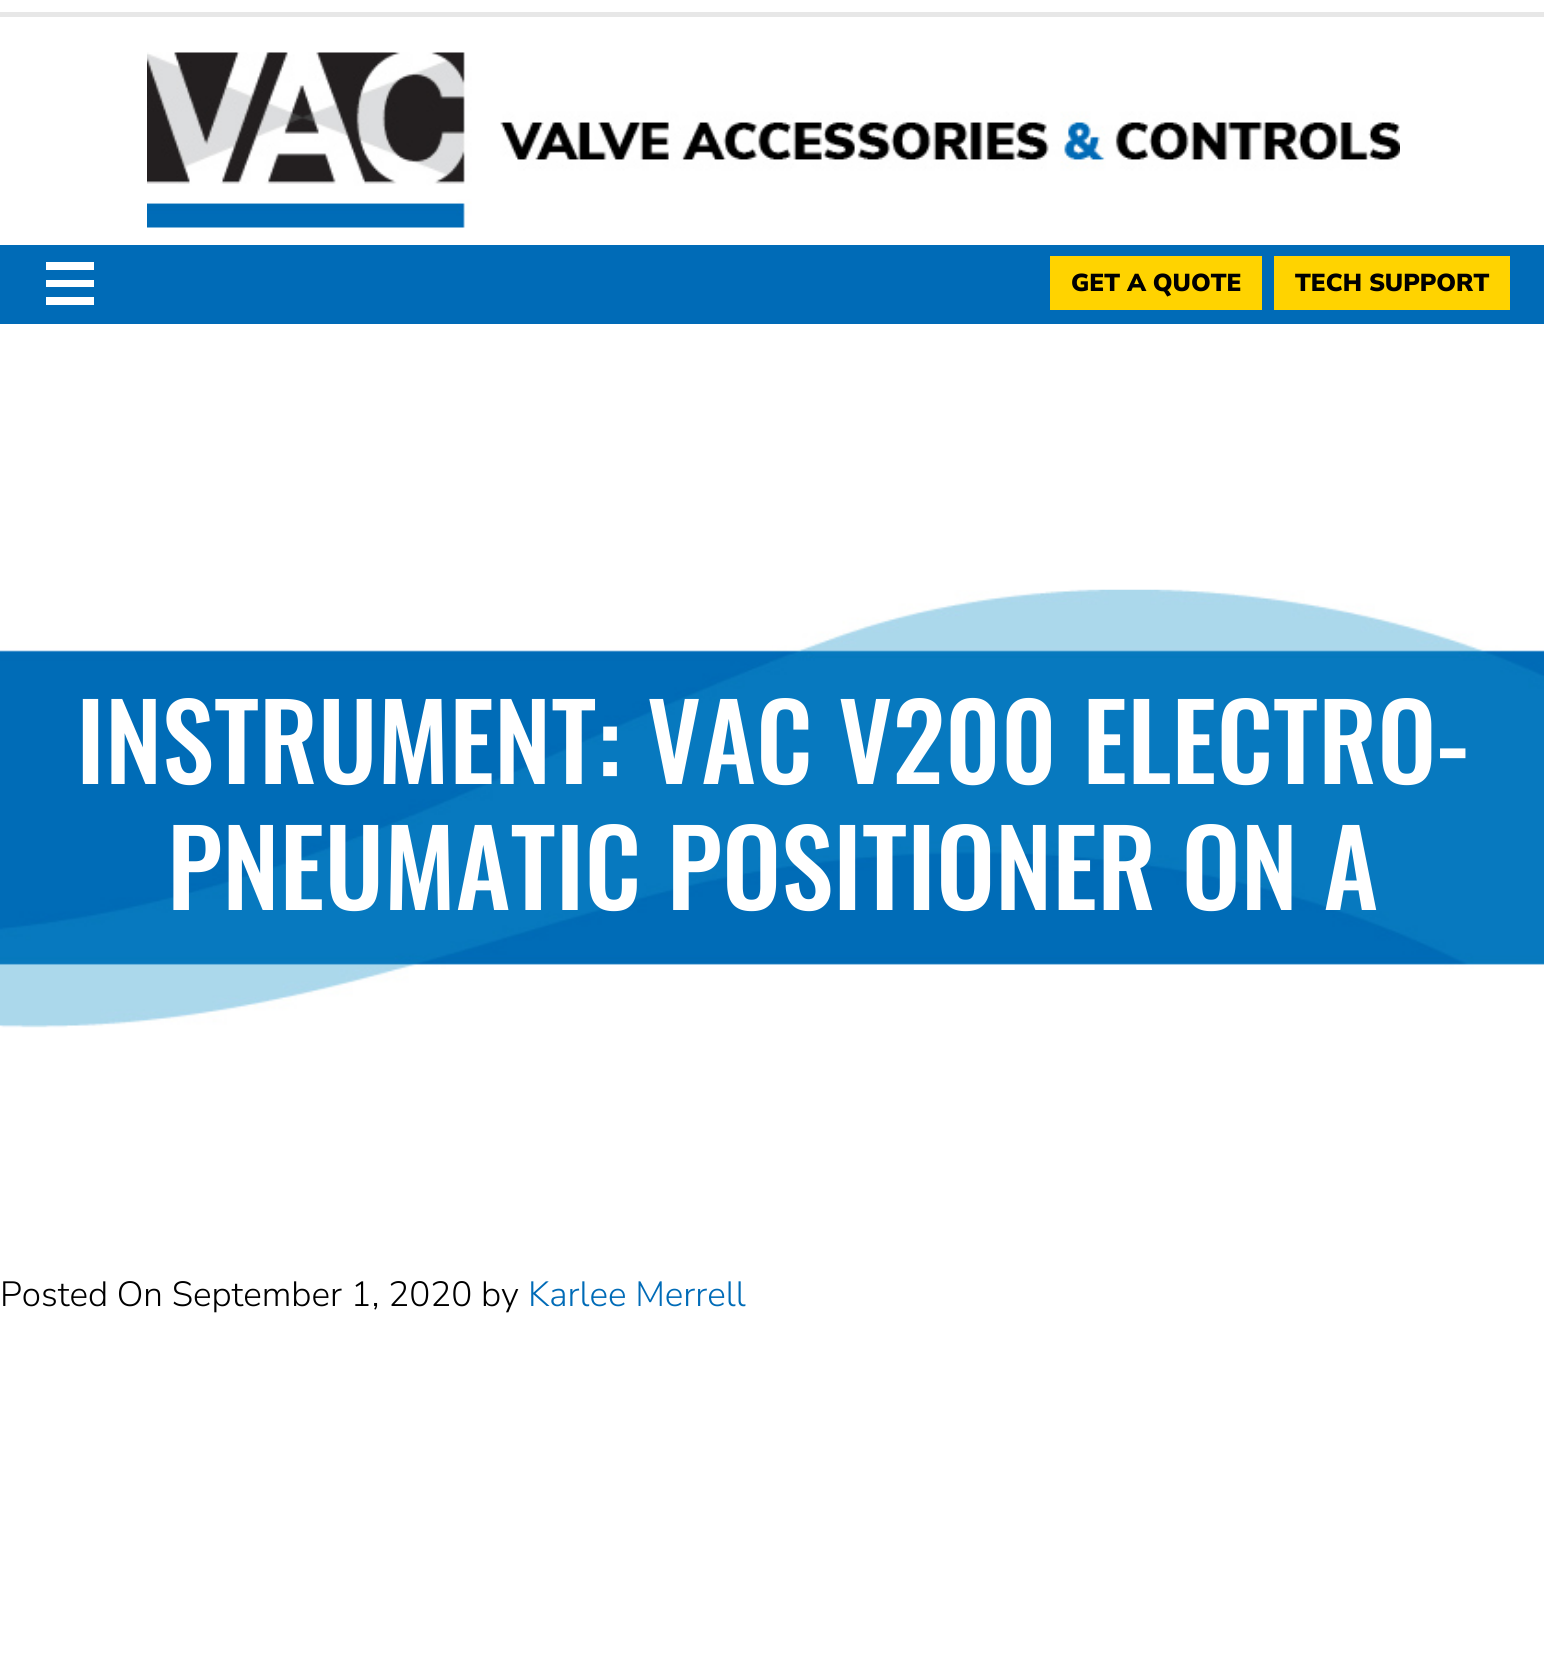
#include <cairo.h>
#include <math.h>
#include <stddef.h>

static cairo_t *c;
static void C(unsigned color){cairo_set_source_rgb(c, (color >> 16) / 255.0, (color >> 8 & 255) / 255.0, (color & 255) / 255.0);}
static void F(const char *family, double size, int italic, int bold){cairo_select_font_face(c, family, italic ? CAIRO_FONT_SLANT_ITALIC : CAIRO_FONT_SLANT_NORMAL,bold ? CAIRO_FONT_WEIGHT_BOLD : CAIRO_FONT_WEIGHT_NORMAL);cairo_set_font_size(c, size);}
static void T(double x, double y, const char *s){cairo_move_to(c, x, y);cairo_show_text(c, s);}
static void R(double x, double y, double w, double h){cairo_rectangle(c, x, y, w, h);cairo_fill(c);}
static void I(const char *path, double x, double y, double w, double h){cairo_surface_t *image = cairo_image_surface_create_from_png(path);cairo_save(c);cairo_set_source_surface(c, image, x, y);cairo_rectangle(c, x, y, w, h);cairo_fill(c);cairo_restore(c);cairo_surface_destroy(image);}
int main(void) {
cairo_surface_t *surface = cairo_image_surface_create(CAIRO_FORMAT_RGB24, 1544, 1679);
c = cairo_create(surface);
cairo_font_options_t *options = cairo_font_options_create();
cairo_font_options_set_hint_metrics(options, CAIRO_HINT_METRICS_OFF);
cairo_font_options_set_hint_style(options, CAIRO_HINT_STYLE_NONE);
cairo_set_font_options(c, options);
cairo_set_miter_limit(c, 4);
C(0xffffff);
cairo_paint(c);
C(0xe7e7e7);
R(0,12,1544,5);
I("1.png",147,52,1253,176);
C(0x006bb7);
R(0,245,1544,79);
C(0xffffff);
cairo_new_path(c);
cairo_move_to(c,46,287);
cairo_line_to(c,94,287);
cairo_line_to(c,94,280);
cairo_line_to(c,46,280);
cairo_close_path(c);
cairo_move_to(c,46,305);
cairo_line_to(c,94,305);
cairo_line_to(c,94,297);
cairo_line_to(c,46,297);
cairo_close_path(c);
cairo_move_to(c,46,262);
cairo_line_to(c,46,270);
cairo_line_to(c,94,270);
cairo_line_to(c,94,262);
cairo_close_path(c);
cairo_fill(c);
C(0xffd300);
R(1050,256,212,54);
F("Nunito Sans Black",24.5,0,0);
C(0x000000);
T(1071,291,"GET A QUOTE");
C(0xffd300);
R(1274,256,236,54);
C(0x000000);
T(1295,291,"TECH SUPPORT");
I("2.png",0,589,1544,439);
F("Oswald Medium",105,0,0);
C(0xffffff);
T(76,784,"INSTRUMENT: VAC V200 ELECTRO-");
T(167,910,"PNEUMATIC POSITIONER ON A");
F("Nunito Sans Light",35,0,0);
C(0x000000);
T(0,1306,"Posted On September 1, 2020 by");
C(0x006bb7);
T(528,1306,"Karlee Merrell");
cairo_surface_write_to_png(surface, "o.png");
cairo_font_options_destroy(options);
cairo_destroy(c);
cairo_surface_destroy(surface);
return 0;
}
